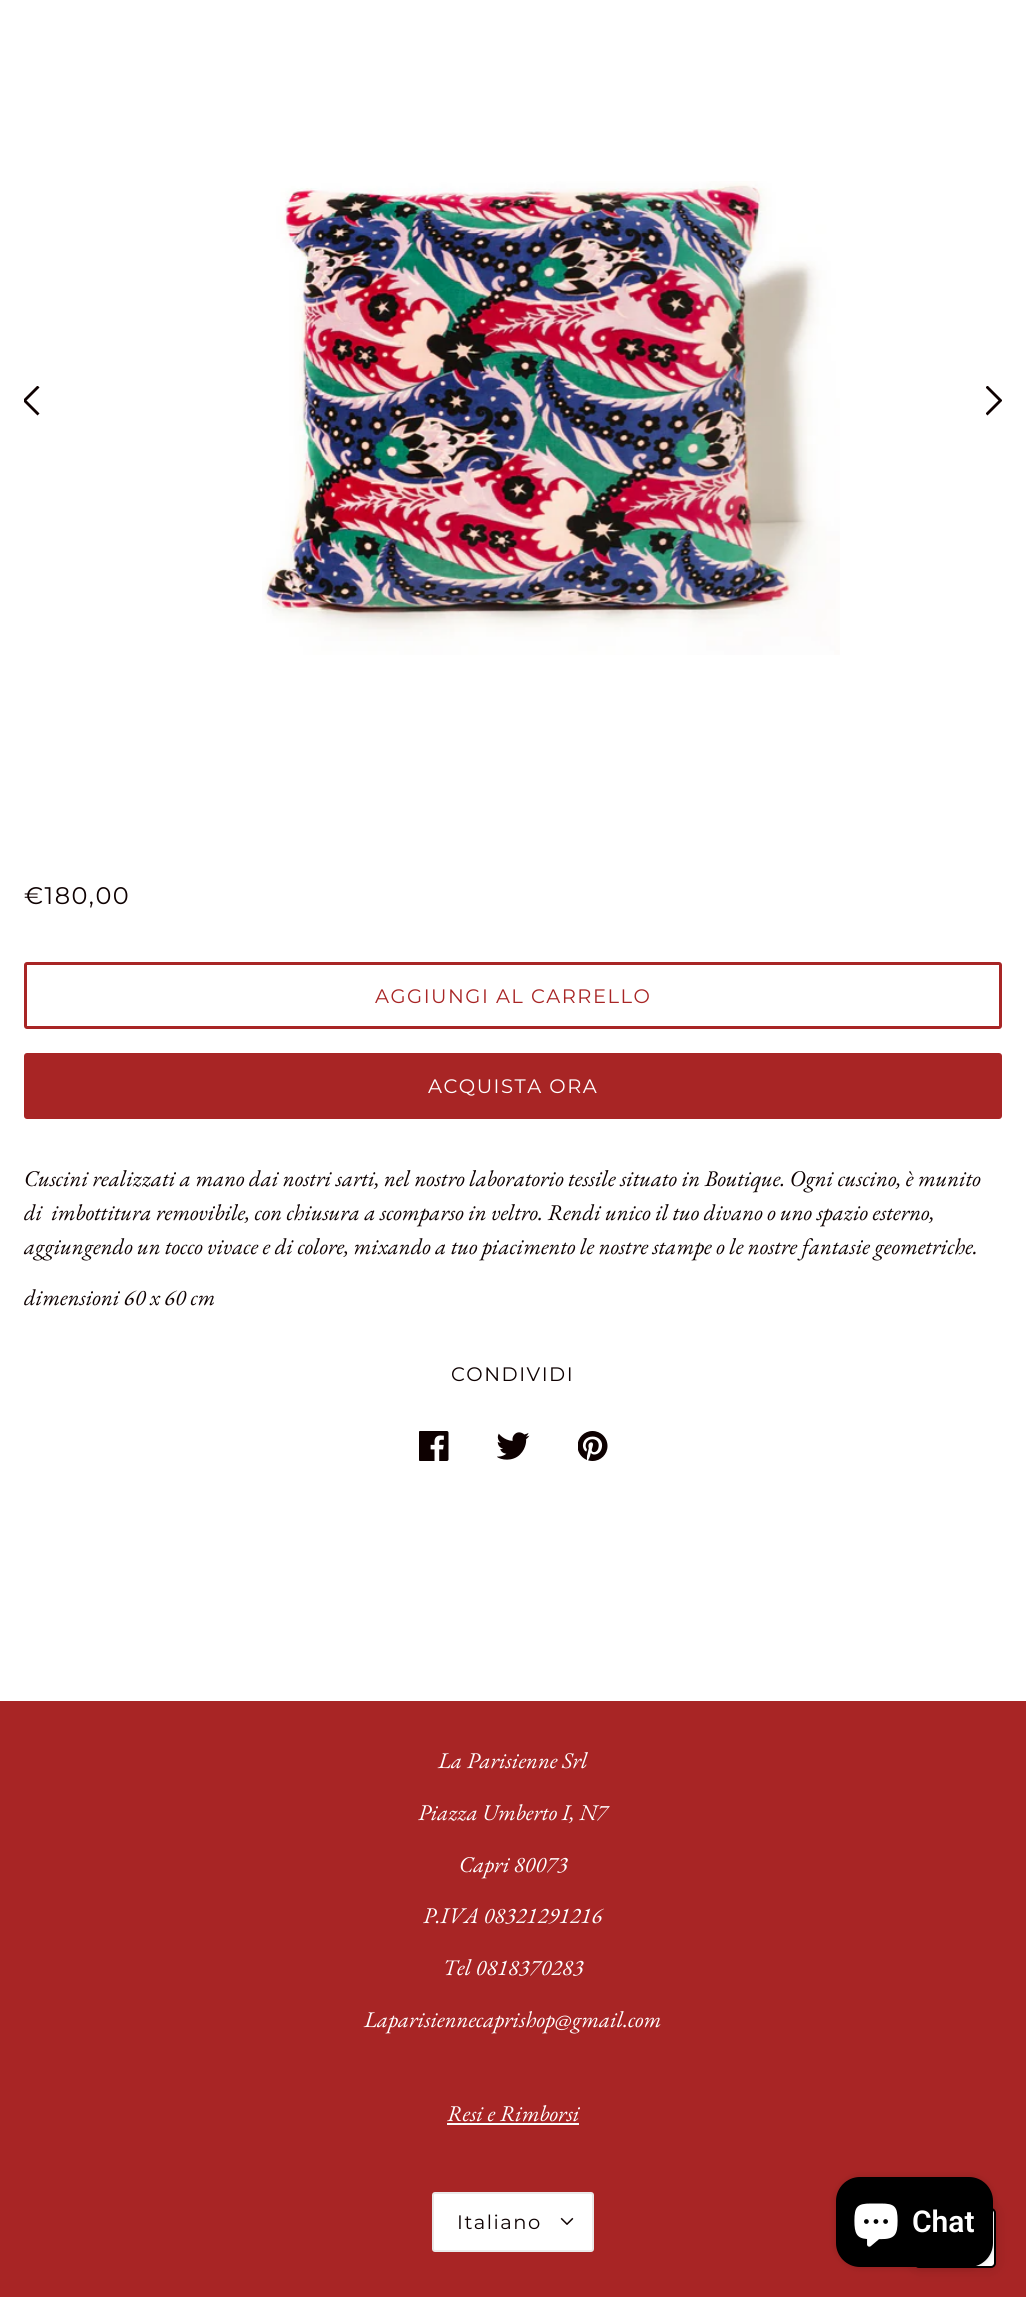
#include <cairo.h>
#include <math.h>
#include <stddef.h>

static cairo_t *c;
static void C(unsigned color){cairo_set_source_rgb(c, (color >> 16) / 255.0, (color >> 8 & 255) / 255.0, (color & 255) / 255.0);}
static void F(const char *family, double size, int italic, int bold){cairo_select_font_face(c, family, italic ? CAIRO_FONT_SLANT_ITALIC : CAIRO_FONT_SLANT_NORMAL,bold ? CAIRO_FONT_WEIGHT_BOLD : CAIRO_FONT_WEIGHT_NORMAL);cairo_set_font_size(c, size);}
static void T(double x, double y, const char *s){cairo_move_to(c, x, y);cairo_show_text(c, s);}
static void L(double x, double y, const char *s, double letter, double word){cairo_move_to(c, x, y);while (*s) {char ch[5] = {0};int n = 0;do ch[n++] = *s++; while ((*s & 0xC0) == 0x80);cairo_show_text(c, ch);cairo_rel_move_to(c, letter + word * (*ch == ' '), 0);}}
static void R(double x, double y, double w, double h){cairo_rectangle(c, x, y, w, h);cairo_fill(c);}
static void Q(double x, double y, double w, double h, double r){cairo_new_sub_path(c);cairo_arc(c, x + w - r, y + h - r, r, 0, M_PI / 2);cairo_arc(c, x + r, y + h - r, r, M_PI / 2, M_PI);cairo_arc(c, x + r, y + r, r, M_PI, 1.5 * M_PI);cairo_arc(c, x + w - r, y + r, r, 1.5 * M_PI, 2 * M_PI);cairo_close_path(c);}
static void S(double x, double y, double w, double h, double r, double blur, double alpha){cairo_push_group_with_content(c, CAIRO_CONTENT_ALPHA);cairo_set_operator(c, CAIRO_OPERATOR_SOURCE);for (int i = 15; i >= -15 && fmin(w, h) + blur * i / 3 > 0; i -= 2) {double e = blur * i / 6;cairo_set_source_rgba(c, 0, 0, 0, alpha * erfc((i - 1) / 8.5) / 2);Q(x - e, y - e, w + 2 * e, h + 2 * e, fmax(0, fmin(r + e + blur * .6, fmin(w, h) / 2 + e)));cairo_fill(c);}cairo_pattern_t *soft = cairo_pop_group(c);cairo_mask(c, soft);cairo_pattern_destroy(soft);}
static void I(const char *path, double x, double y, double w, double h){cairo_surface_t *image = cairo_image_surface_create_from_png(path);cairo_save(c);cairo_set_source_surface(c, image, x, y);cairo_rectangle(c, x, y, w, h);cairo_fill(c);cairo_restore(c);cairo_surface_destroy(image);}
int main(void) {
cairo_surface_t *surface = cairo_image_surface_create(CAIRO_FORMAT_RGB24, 1026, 2297);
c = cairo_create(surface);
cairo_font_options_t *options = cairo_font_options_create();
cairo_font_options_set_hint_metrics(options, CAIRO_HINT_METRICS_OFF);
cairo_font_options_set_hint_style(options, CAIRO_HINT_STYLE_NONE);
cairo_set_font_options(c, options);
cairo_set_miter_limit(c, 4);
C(0xffffff);
cairo_paint(c);
I("1.png",262,181,578,474);
cairo_save(c);
cairo_rectangle(c,24,386,17,30);
cairo_clip(c);
C(0x0e0101);
cairo_new_path(c);
cairo_move_to(c,26.5,400.5);
cairo_line_to(c,39.5,387.5);
cairo_line_to(c,37.5,385.5);
cairo_line_to(c,22.5,400.5);
cairo_line_to(c,37.5,415.5);
cairo_line_to(c,39.5,413.5);
cairo_close_path(c);
cairo_fill(c);
cairo_restore(c);
cairo_save(c);
cairo_rectangle(c,986,386,16,30);
cairo_clip(c);
C(0x0e0101);
cairo_new_path(c);
cairo_move_to(c,998.5,400.5);
cairo_line_to(c,985.5,413.5);
cairo_line_to(c,987.5,415.5);
cairo_line_to(c,1002.5,400.5);
cairo_line_to(c,987.5,385.5);
cairo_line_to(c,985.5,387.5);
cairo_close_path(c);
cairo_fill(c);
cairo_restore(c);
F("Montserrat",24,0,0);
C(0x0e0101);
L(24,904,"€180,00",1.5,0);
Q(25.5,963.5,975,64,1.5);
C(0xa82525);
cairo_set_line_width(c,3);
cairo_stroke(c);
F("Montserrat",19.5,0,0);
L(375,1003,"AGGIUNGI AL CARRELLO",1.5,0);
Q(24,1053,978,66,3);
cairo_fill(c);
C(0xffffff);
L(428,1093,"ACQUISTA ORA",1.5,0);
F("EB Garamond",22.5,1,0);
C(0x0e0101);
T(24,1186,"Cuscini realizzati a mano dai nostri sarti, nel nostro laboratorio tessile situato in Boutique. Ogni cuscino, è munito");
T(24,1220,"di  imbottitura removibile, con chiusura a scomparso in veltro. Rendi unico il tuo divano o uno spazio esterno,");
T(24,1254,"aggiungendo un tocco vivace e di colore, mixando a tuo piacimento le nostre stampe o le nostre fantasie geometriche.");
T(24,1305,"dimensioni 60 x 60 cm");
F("Montserrat",19.5,0,0);
L(451,1381,"CONDIVIDI",1.5,0);
I("2.png",419,1431,30,30);
I("3.png",497,1432,33,28);
I("4.png",578,1431,30,30);
C(0xa82525);
R(0,1701,1026,596);
F("EB Garamond",22.5,1,0);
C(0xffffff);
T(438,1768,"La Parisienne Srl");
T(418,1820,"Piazza Umberto I, N7");
T(459,1872,"Capri 80073");
T(423,1923,"P.IVA 08321291216");
T(443,1975,"Tel 0818370283");
T(364,2027,"Laparisiennecaprishop@gmail.com");
T(447,2121,"Resi e Rimborsi");
C(0xfcfcfc);
R(447,2123,132,2);
C(0xffffff);
Q(433,2193,160,58,2);
cairo_fill_preserve(c);
C(0xeaeaea);
cairo_set_line_width(c,2);
cairo_stroke(c);
F("Montserrat",19.5,0,0);
C(0x0e0101);
L(457,2229,"Italiano",1.5,0);
I("5.png",560,2217,14,8);
C(0x000000);
S(914,2208,82,60,5,7.5,.15);
C(0xffffff);
Q(915,2209,80,58,4);
cairo_fill_preserve(c);
C(0x000000);
cairo_stroke(c);
C(0x000000);
S(836,2177,157,90,24,4,.15);
C(0x000000);
Q(836,2177,157,90,24);
cairo_fill(c);
I("6.png",854,2203,44,44);
F("Roboto SemiBold",30,0,0);
C(0xffffff);
T(912,2232,"Chat");
cairo_surface_write_to_png(surface, "o.png");
cairo_font_options_destroy(options);
cairo_destroy(c);
cairo_surface_destroy(surface);
return 0;
}
